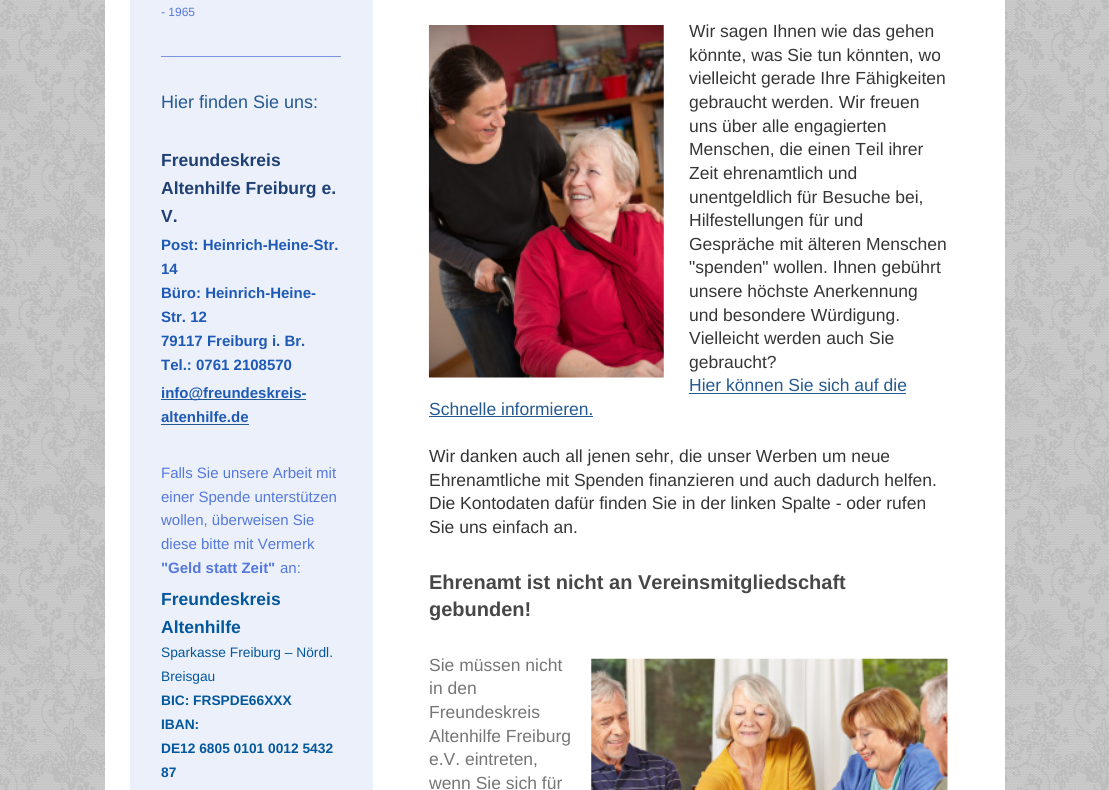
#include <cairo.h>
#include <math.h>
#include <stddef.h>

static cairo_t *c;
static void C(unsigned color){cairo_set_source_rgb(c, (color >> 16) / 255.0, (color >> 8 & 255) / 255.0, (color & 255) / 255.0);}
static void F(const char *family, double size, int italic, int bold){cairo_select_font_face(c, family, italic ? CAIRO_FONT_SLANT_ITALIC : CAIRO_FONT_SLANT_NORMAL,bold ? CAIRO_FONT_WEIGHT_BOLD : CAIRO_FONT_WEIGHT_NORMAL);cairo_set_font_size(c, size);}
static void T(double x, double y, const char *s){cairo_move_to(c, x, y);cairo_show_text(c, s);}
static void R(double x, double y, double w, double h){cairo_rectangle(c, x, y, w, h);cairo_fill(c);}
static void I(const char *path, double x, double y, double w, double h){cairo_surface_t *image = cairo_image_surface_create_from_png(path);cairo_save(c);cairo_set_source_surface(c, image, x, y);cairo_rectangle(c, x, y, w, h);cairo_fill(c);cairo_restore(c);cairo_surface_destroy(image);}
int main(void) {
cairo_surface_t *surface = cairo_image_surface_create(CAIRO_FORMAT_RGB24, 1109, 790);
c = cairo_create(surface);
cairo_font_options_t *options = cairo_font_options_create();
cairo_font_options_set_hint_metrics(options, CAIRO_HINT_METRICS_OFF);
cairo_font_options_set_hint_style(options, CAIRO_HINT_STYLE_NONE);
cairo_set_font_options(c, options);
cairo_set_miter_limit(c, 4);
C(0xffffff);
cairo_paint(c);
I("1.png",0,0,1109,790);
C(0xffffff);
R(105,0,900,790);
C(0xecf0fb);
R(130,0,243,790);
F("Liberation Sans",12,0,0);
C(0x5478db);
T(161,16,"- 1965");
C(0x7a96e3);
R(161,56,180,1);
F("Liberation Sans",18,0,0);
C(0x245992);
T(161,108,"Hier finden Sie uns:");
F("Liberation Sans",17.5,0,1);
C(0x1f4072);
T(161,166,"Freundeskreis");
T(161,194,"Altenhilfe Freiburg e.");
T(161,222,"V.");
F("Liberation Sans",15,0,1);
C(0x1e5ab5);
T(161,250,"Post: Heinrich-Heine-Str.");
T(161,274,"14");
T(161,298,"Büro: Heinrich-Heine-");
T(161,322,"Str. 12");
T(161,346,"79117 Freiburg i. Br.");
T(161,370,"Tel.: 0761 2108570");
C(0x245992);
R(161,399,145,1);
C(0x1e5ab5);
T(161,398,"info@freundeskreis-");
T(161,422,"altenhilfe.de");
C(0x245992);
R(161,424,88,1);
F("Liberation Sans",15,0,0);
C(0x5478db);
T(161,478,"Falls Sie unsere Arbeit mit");
T(161,502,"einer Spende unterstützen");
T(161,525,"wollen, überweisen Sie");
T(161,549,"diese bitte mit Vermerk");
F("Liberation Sans",15,0,1);
T(161,573,"\"Geld statt Zeit\"");
F("Liberation Sans",15,0,0);
T(280,573,"an:");
F("Liberation Sans",17.5,0,1);
C(0x03579b);
T(161,605,"Freundeskreis");
T(161,633,"Altenhilfe");
F("Liberation Sans",13.75,0,0);
T(161,657,"Sparkasse Freiburg – Nördl.");
T(161,681,"Breisgau");
F("Liberation Sans",13.75,0,1);
T(161,705,"BIC: FRSPDE66XXX");
T(161,729,"IBAN:");
T(161,753,"DE12 6805 0101 0012 5432");
T(161,777,"87");
F("Liberation Sans",17.5,0,0);
C(0x353535);
T(689,37,"Wir sagen Ihnen wie das gehen");
T(689,61,"könnte, was Sie tun könnten, wo");
T(689,84,"vielleicht gerade Ihre Fähigkeiten");
T(689,108,"gebraucht werden. Wir freuen");
T(689,132,"uns über alle engagierten");
T(689,155,"Menschen, die einen Teil ihrer");
T(689,179,"Zeit ehrenamtlich und");
T(689,203,"unentgeldlich für Besuche bei,");
T(689,226,"Hilfestellungen für und");
T(689,250,"Gespräche mit älteren Menschen");
T(689,273,"\"spenden\" wollen. Ihnen gebührt");
T(689,297,"unsere höchste Anerkennung");
T(689,321,"und besondere Würdigung.");
T(689,344,"Vielleicht werden auch Sie");
T(689,368,"gebraucht?");
C(0x245992);
T(689,391,"Hier können Sie sich auf die");
R(689,393,217,1);
T(429,415,"Schnelle informieren.");
R(429,416,164,1);
C(0x353535);
T(429,462,"Wir danken auch all jenen sehr, die unser Werben um neue");
T(429,486,"Ehrenamtliche mit Spenden finanzieren und auch dadurch helfen.");
T(429,509,"Die Kontodaten dafür finden Sie in der linken Spalte - oder rufen");
T(429,533,"Sie uns einfach an.");
I("2.png",428,25,236,353);
F("Liberation Sans",20,0,1);
C(0x474747);
T(429,589,"Ehrenamt ist nicht an Vereinsmitgliedschaft");
T(429,616,"gebunden!");
F("Liberation Sans",17.5,0,0);
C(0x757575);
T(429,671,"Sie müssen nicht");
T(429,694,"in den");
T(429,718,"Freundeskreis");
T(429,742,"Altenhilfe Freiburg");
T(429,765,"e.V. eintreten,");
T(429,789,"wenn Sie sich für");
I("3.png",591,658,357,132);
cairo_surface_write_to_png(surface, "o.png");
cairo_font_options_destroy(options);
cairo_destroy(c);
cairo_surface_destroy(surface);
return 0;
}
